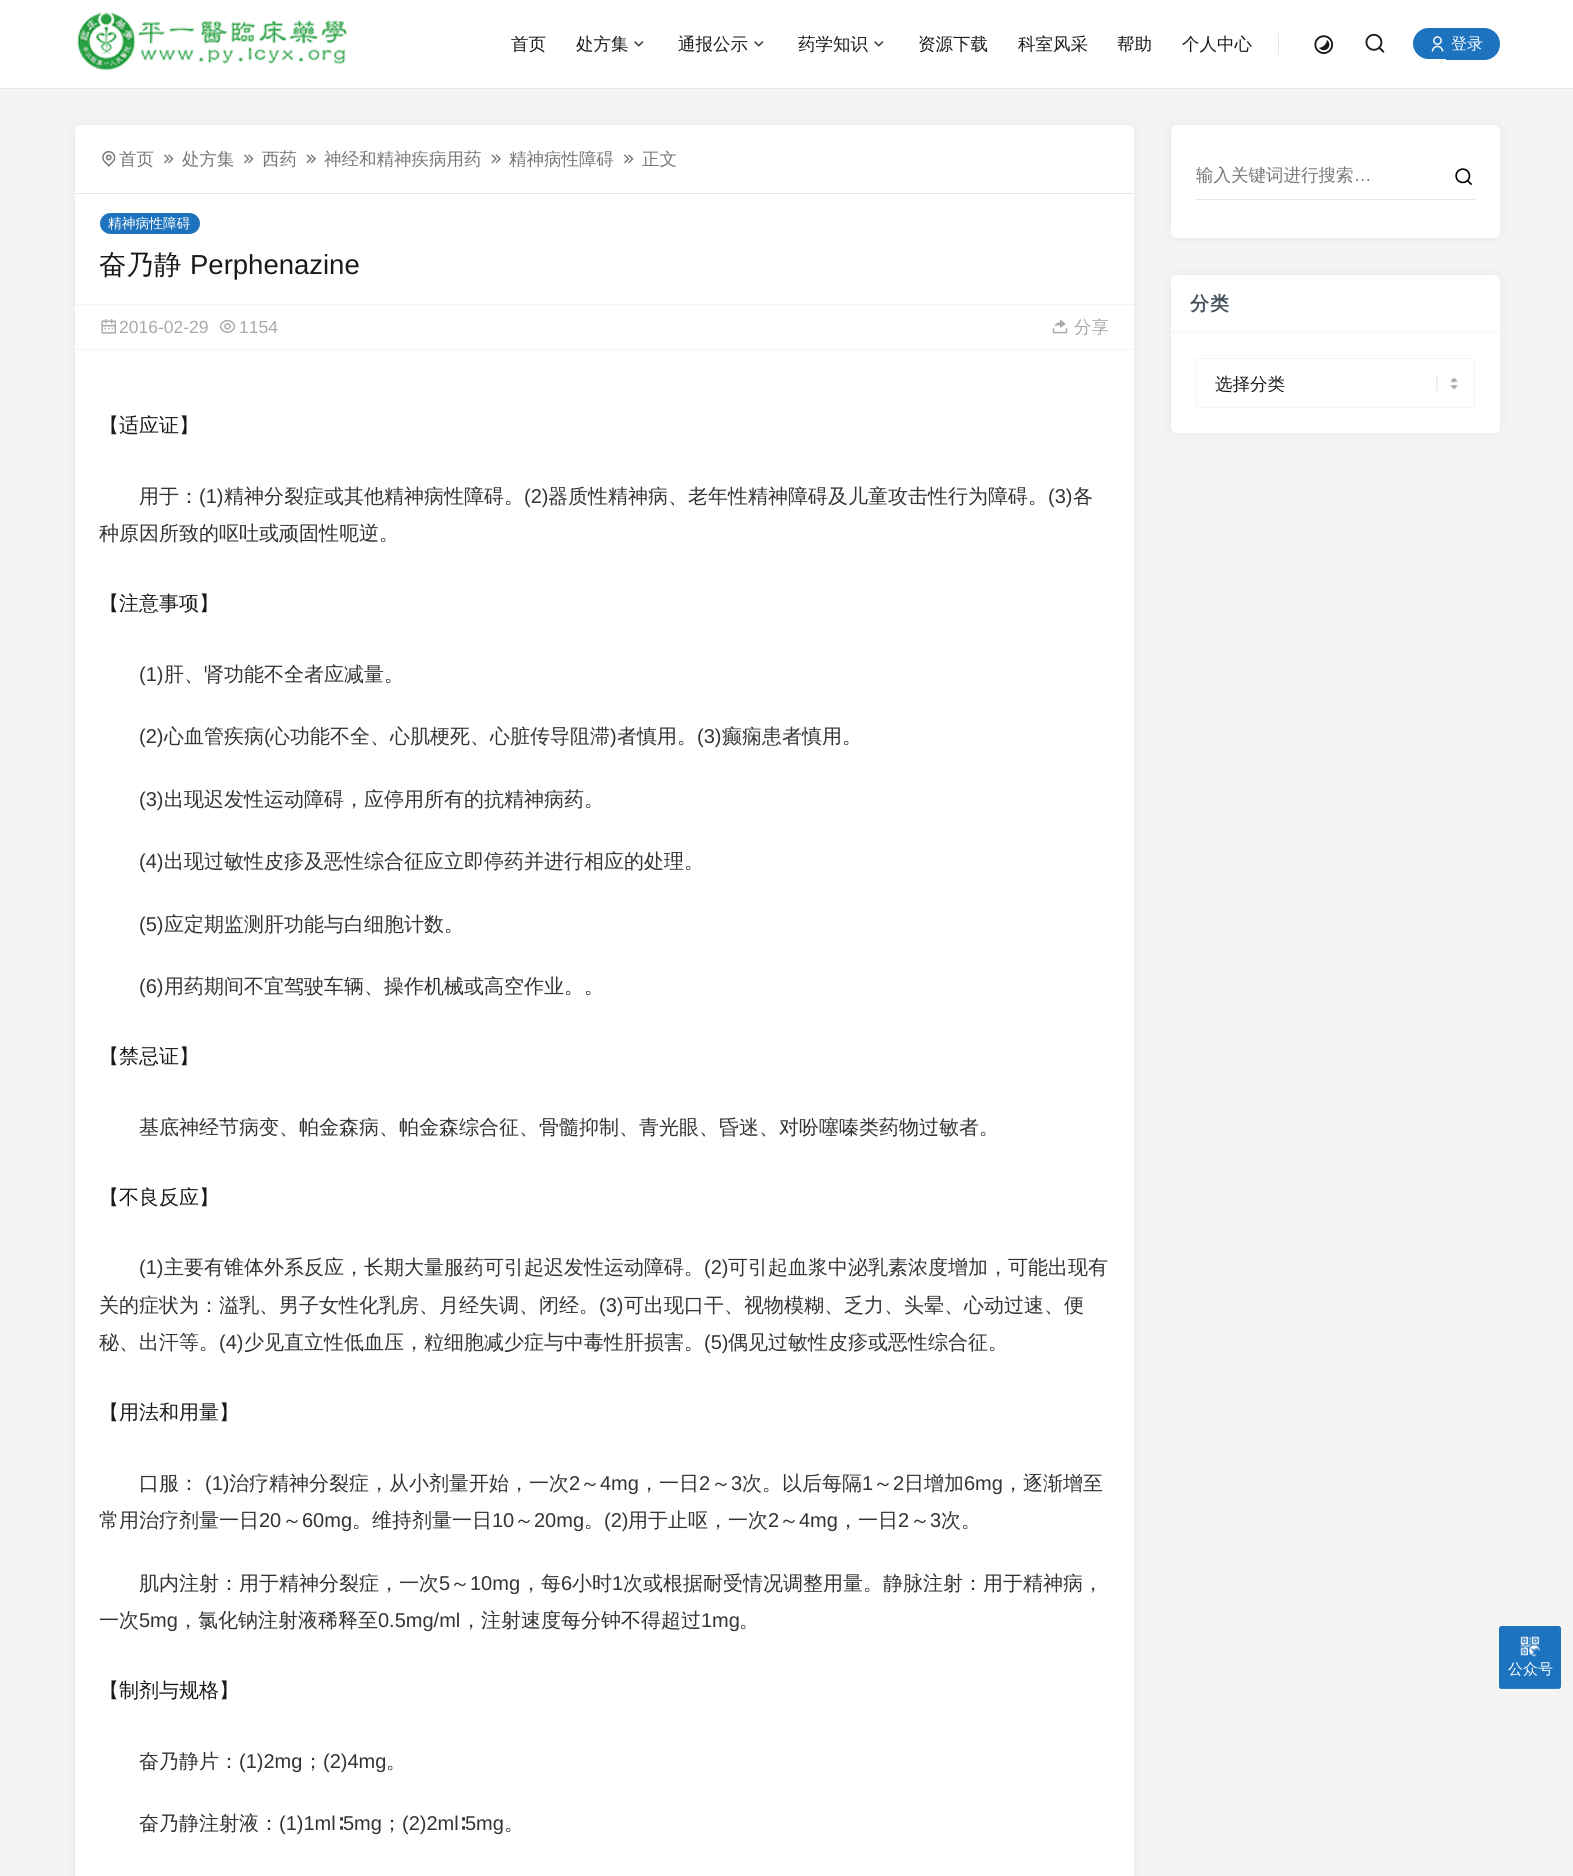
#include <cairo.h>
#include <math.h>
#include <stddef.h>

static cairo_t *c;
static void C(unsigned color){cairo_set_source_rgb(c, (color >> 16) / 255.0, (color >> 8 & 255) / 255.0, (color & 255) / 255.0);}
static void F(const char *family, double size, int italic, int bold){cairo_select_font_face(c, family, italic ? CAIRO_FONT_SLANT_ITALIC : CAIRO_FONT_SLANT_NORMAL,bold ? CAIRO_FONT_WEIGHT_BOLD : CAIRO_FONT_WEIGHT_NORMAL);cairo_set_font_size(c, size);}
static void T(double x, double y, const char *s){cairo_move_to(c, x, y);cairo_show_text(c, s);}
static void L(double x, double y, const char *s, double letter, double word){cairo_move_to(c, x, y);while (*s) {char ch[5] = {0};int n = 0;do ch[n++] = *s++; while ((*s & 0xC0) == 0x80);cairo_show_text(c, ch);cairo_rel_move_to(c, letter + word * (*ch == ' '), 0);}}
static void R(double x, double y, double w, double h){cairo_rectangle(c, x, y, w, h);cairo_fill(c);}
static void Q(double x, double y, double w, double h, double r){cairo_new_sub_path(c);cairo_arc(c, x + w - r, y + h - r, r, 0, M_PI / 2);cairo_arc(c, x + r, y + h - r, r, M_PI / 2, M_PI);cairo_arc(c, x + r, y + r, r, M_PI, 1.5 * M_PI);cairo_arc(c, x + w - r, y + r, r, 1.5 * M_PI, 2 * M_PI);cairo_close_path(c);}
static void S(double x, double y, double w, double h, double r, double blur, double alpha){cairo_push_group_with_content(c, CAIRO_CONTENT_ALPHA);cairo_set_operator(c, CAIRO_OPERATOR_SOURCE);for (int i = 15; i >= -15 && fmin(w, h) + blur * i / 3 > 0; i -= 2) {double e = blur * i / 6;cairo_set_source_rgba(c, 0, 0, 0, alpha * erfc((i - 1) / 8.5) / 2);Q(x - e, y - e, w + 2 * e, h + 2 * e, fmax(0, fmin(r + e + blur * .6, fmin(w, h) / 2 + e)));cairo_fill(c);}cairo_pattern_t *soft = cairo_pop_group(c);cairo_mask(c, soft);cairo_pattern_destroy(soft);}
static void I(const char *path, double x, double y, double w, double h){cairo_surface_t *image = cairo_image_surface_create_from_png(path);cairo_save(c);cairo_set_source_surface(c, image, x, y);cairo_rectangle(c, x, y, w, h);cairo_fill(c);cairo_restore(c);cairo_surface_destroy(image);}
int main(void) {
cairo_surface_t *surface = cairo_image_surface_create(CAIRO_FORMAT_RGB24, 1573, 1876);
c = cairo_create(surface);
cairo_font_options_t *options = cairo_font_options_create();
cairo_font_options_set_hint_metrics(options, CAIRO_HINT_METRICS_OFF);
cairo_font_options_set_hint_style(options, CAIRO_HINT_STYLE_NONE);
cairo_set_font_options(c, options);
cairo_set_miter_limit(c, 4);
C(0xf4f4f4);
cairo_paint(c);
C(0xffffff);
R(0,0,1573,88);
C(0xe6e6e6);
R(0,88,1573,1);
I("1.png",77,12,270,59);
F("WenQuanYi Zen Hei Medium",17.5,0,0);
C(0x1a1a1a);
T(511,50,"首页");
T(576,50,"处方集");
I("2.png",634,41,10,6);
T(678,50,"通报公示");
I("2.png",754,41,10,6);
T(798,50,"药学知识");
I("2.png",874,41,10,6);
T(918,50,"资源下载");
T(1018,50,"科室风采");
T(1117,50,"帮助");
T(1182,50,"个人中心");
C(0xe6e6e6);
R(1278,33,1,22);
I("3.png",1314,35,20,19);
I("4.png",1365,33,20,20);
C(0x1e73be);
cairo_new_path(c);
cairo_move_to(c,1428.5,28);
cairo_line_to(c,1446,28);
cairo_line_to(c,1446,59);
cairo_line_to(c,1428.5,59);
cairo_curve_to(c,1420,59,1413,52,1413,43.5);
cairo_curve_to(c,1413,35,1420,28,1428.5,28);
cairo_close_path(c);
cairo_fill(c);
I("5.png",1431,36,13,16);
cairo_new_path(c);
cairo_move_to(c,1446,28);
cairo_line_to(c,1484,28);
cairo_curve_to(c,1493,28,1500,35,1500,44);
cairo_curve_to(c,1500,53,1493,60,1484,60);
cairo_line_to(c,1446,60);
cairo_close_path(c);
cairo_fill(c);
F("WenQuanYi Zen Hei Medium",16,0,0);
C(0xffffff);
T(1451,49,"登录");
C(0x000000);
S(75,125,1059,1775,6,6,.05);
C(0xffffff);
cairo_new_path(c);
cairo_move_to(c,81,125);
cairo_line_to(c,1128,125);
cairo_curve_to(c,1131.5,125,1134,127.5,1134,131);
cairo_line_to(c,1134,194);
cairo_line_to(c,75,194);
cairo_line_to(c,75,131);
cairo_curve_to(c,75,127.5,77.5,125,81,125);
cairo_close_path(c);
cairo_fill(c);
C(0xe6e6e6);
R(75,193,1059,1);
I("6.png",102,151,14,16);
F("WenQuanYi Zen Hei Medium",17.5,0,0);
C(0x777777);
T(119,165,"首页");
I("7.png",164,154,10,10);
T(182,165,"处方集");
I("7.png",244,154,10,10);
T(262,165,"西药");
I("8.png",306,154,10,10);
T(324,165,"神经和精神疾病用药");
I("8.png",491,154,10,10);
T(509,165,"精神病性障碍");
I("7.png",624,154,10,10);
T(642,165,"正文");
C(0xffffff);
R(75,194,1059,110);
C(0x1e73be);
Q(100,213,100,21,10.5);
cairo_fill(c);
F("WenQuanYi Zen Hei Medium",13.75,0,0);
C(0xffffff);
T(108,228,"精神病性障碍");
F("WenQuanYi Zen Hei Medium",27.5,0,0);
C(0x1a1a1a);
T(99,274,"奋乃静");
F("Liberation Sans",27.5,0,0);
T(190,274,"Perphenazine");
C(0xffffff);
R(75,305,1059,44);
C(0xf4f4f4);
R(75,304,1059,1);
R(75,349,1059,1);
I("9.png",101,319,15,15);
F("Liberation Sans",17.5,0,0);
C(0xaaaaaa);
T(119,333,"2016-02-29");
I("10.png",219,319,17,14);
T(239,333,"1154");
I("11.png",1052,319,16,15);
F("WenQuanYi Zen Hei Medium",17.5,0,0);
T(1074,333,"分享");
C(0xffffff);
R(75,350,1059,1526);
F("WenQuanYi Zen Hei Medium",20,0,0);
C(0x1a1a1a);
T(99,432,"【适应证】");
C(0x333333);
T(139,503,"用于：");
F("Liberation Sans",20,0,0);
T(199,503,"(1)");
F("WenQuanYi Zen Hei Medium",20,0,0);
T(224,503,"精神分裂症或其他精神病性障碍。");
F("Liberation Sans",20,0,0);
T(524,503,"(2)");
F("WenQuanYi Zen Hei Medium",20,0,0);
T(548,503,"器质性精神病、老年性精神障碍及儿童攻击性行为障碍。");
F("Liberation Sans",20,0,0);
T(1048,503,"(3)");
F("WenQuanYi Zen Hei Medium",20,0,0);
T(1073,503,"各");
T(99,540,"种原因所致的呕吐或顽固性呃逆。");
C(0x1a1a1a);
T(99,610,"【注意事项】");
F("Liberation Sans",20,0,0);
C(0x333333);
T(139,681,"(1)");
F("WenQuanYi Zen Hei Medium",20,0,0);
T(164,681,"肝、肾功能不全者应减量。");
F("Liberation Sans",20,0,0);
T(139,743,"(2)");
F("WenQuanYi Zen Hei Medium",20,0,0);
T(164,743,"心血管疾病");
F("Liberation Sans",20,0,0);
T(264,743,"(");
F("WenQuanYi Zen Hei Medium",20,0,0);
T(270,743,"心功能不全、心肌梗死、心脏传导阻滞");
F("Liberation Sans",20,0,0);
T(610,743,")");
F("WenQuanYi Zen Hei Medium",20,0,0);
T(617,743,"者慎用。");
F("Liberation Sans",20,0,0);
T(697,743,"(3)");
F("WenQuanYi Zen Hei Medium",20,0,0);
T(722,743,"癫痫患者慎用。");
F("Liberation Sans",20,0,0);
T(139,806,"(3)");
F("WenQuanYi Zen Hei Medium",20,0,0);
T(164,806,"出现迟发性运动障碍，应停用所有的抗精神病药。");
F("Liberation Sans",20,0,0);
T(139,868,"(4)");
F("WenQuanYi Zen Hei Medium",20,0,0);
T(164,868,"出现过敏性皮疹及恶性综合征应立即停药并进行相应的处理。");
F("Liberation Sans",20,0,0);
T(139,931,"(5)");
F("WenQuanYi Zen Hei Medium",20,0,0);
T(164,931,"应定期监测肝功能与白细胞计数。");
F("Liberation Sans",20,0,0);
T(139,993,"(6)");
F("WenQuanYi Zen Hei Medium",20,0,0);
T(164,993,"用药期间不宜驾驶车辆、操作机械或高空作业。。");
C(0x1a1a1a);
T(99,1063,"【禁忌证】");
C(0x333333);
T(139,1134,"基底神经节病变、帕金森病、帕金森综合征、骨髓抑制、青光眼、昏迷、对吩噻嗪类药物过敏者。");
C(0x1a1a1a);
T(99,1204,"【不良反应】");
F("Liberation Sans",20,0,0);
C(0x333333);
T(139,1274,"(1)");
F("WenQuanYi Zen Hei Medium",20,0,0);
T(164,1274,"主要有锥体外系反应，长期大量服药可引起迟发性运动障碍。");
F("Liberation Sans",20,0,0);
T(704,1274,"(2)");
F("WenQuanYi Zen Hei Medium",20,0,0);
T(728,1274,"可引起血浆中泌乳素浓度增加，可能出现有");
T(99,1312,"关的症状为：溢乳、男子女性化乳房、月经失调、闭经。");
F("Liberation Sans",20,0,0);
T(599,1312,"(3)");
F("WenQuanYi Zen Hei Medium",20,0,0);
T(624,1312,"可出现口干、视物模糊、乏力、头晕、心动过速、便");
T(99,1349,"秘、出汗等。");
F("Liberation Sans",20,0,0);
T(219,1349,"(4)");
F("WenQuanYi Zen Hei Medium",20,0,0);
T(244,1349,"少见直立性低血压，粒细胞减少症与中毒性肝损害。");
F("Liberation Sans",20,0,0);
T(704,1349,"(5)");
F("WenQuanYi Zen Hei Medium",20,0,0);
T(728,1349,"偶见过敏性皮疹或恶性综合征。");
C(0x1a1a1a);
T(99,1419,"【用法和用量】");
C(0x333333);
T(139,1490,"口服：");
F("Liberation Sans",20,0,0);
T(205,1490,"(1)");
F("WenQuanYi Zen Hei Medium",20,0,0);
T(229,1490,"治疗精神分裂症，从小剂量开始，一次");
F("Liberation Sans",20,0,0);
T(569,1490,"2");
F("WenQuanYi Zen Hei Medium",20,0,0);
T(580,1490,"～");
F("Liberation Sans",20,0,0);
T(600,1490,"4mg");
F("WenQuanYi Zen Hei Medium",20,0,0);
T(639,1490,"，一日");
F("Liberation Sans",20,0,0);
T(699,1490,"2");
F("WenQuanYi Zen Hei Medium",20,0,0);
T(711,1490,"～");
F("Liberation Sans",20,0,0);
T(731,1490,"3");
F("WenQuanYi Zen Hei Medium",20,0,0);
T(742,1490,"次。以后每隔");
F("Liberation Sans",20,0,0);
T(862,1490,"1");
F("WenQuanYi Zen Hei Medium",20,0,0);
T(873,1490,"～");
F("Liberation Sans",20,0,0);
T(893,1490,"2");
F("WenQuanYi Zen Hei Medium",20,0,0);
T(904,1490,"日增加");
F("Liberation Sans",20,0,0);
T(964,1490,"6mg");
F("WenQuanYi Zen Hei Medium",20,0,0);
T(1003,1490,"，逐渐增至");
T(99,1527,"常用治疗剂量一日");
F("Liberation Sans",20,0,0);
T(259,1527,"20");
F("WenQuanYi Zen Hei Medium",20,0,0);
T(282,1527,"～");
F("Liberation Sans",20,0,0);
T(302,1527,"60mg");
F("WenQuanYi Zen Hei Medium",20,0,0);
T(352,1527,"。维持剂量一日");
F("Liberation Sans",20,0,0);
T(492,1527,"10");
F("WenQuanYi Zen Hei Medium",20,0,0);
T(514,1527,"～");
F("Liberation Sans",20,0,0);
T(534,1527,"20mg");
T(604,1527,"(2)");
F("WenQuanYi Zen Hei Medium",20,0,0);
T(628,1527,"用于止呕，一次");
F("Liberation Sans",20,0,0);
T(768,1527,"2");
F("WenQuanYi Zen Hei Medium",20,0,0);
T(779,1527,"～");
F("Liberation Sans",20,0,0);
T(799,1527,"4mg");
F("WenQuanYi Zen Hei Medium",20,0,0);
T(838,1527,"，一日");
F("Liberation Sans",20,0,0);
T(898,1527,"2");
F("WenQuanYi Zen Hei Medium",20,0,0);
T(910,1527,"～");
F("Liberation Sans",20,0,0);
T(930,1527,"3");
F("WenQuanYi Zen Hei Medium",20,0,0);
T(941,1527,"次。");
T(584,1527,"。");
T(139,1590,"肌内注射：用于精神分裂症，一次");
F("Liberation Sans",20,0,0);
T(439,1590,"5");
F("WenQuanYi Zen Hei Medium",20,0,0);
T(450,1590,"～");
F("Liberation Sans",20,0,0);
T(470,1590,"10mg");
F("WenQuanYi Zen Hei Medium",20,0,0);
T(521,1590,"，每");
F("Liberation Sans",20,0,0);
T(561,1590,"6");
F("WenQuanYi Zen Hei Medium",20,0,0);
T(572,1590,"小时");
F("Liberation Sans",20,0,0);
T(612,1590,"1");
F("WenQuanYi Zen Hei Medium",20,0,0);
T(623,1590,"次或根据耐受情况调整用量。静脉注射：用于精神病，");
T(99,1627,"一次");
F("Liberation Sans",20,0,0);
T(139,1627,"5mg");
F("WenQuanYi Zen Hei Medium",20,0,0);
T(178,1627,"，氯化钠注射液稀释至");
F("Liberation Sans",20,0,0);
T(378,1627,"0.5mg/ml");
F("WenQuanYi Zen Hei Medium",20,0,0);
T(461,1627,"，注射速度每分钟不得超过");
F("Liberation Sans",20,0,0);
T(701,1627,"1mg");
F("WenQuanYi Zen Hei Medium",20,0,0);
T(739,1627,"。");
C(0x1a1a1a);
T(99,1697,"【制剂与规格】");
C(0x333333);
T(139,1768,"奋乃静片：");
F("Liberation Sans",20,0,0);
T(239,1768,"(1)2mg");
F("WenQuanYi Zen Hei Medium",20,0,0);
T(303,1768,"；");
F("Liberation Sans",20,0,0);
T(323,1768,"(2)4mg");
F("WenQuanYi Zen Hei Medium",20,0,0);
T(386,1768,"。");
T(139,1830,"奋乃静注射液：");
F("Liberation Sans",20,0,0);
T(279,1830,"(1)1ml");
F("WenQuanYi Zen Hei Medium",20,0,0);
T(336,1830,"∶");
F("Liberation Sans",20,0,0);
T(343,1830,"5mg");
F("WenQuanYi Zen Hei Medium",20,0,0);
T(382,1830,"；");
F("Liberation Sans",20,0,0);
T(402,1830,"(2)2ml");
F("WenQuanYi Zen Hei Medium",20,0,0);
T(458,1830,"∶");
F("Liberation Sans",20,0,0);
T(465,1830,"5mg");
F("WenQuanYi Zen Hei Medium",20,0,0);
T(504,1830,"。");
C(0x000000);
S(1171,125,329,113,6,6,.05);
C(0xffffff);
Q(1171,125,329,113,6);
cairo_fill(c);
C(0xe6e6e6);
R(1196,199,279,1);
F("WenQuanYi Zen Hei Medium",17.5,0,0);
C(0x777777);
T(1196,181,"输入关键词进行搜索");
F("Liberation Sans",17.5,0,0);
T(1354,181,"…");
I("12.png",1455,168,18,18);
C(0x000000);
S(1171,275,329,158,6,6,.05);
C(0xffffff);
Q(1171,275,329,158,6);
cairo_fill(c);
C(0xf4f4f4);
R(1171,331,329,1);
F("WenQuanYi Zen Hei",19,0,1);
C(0x47525d);
L(1190,310,"分类",1,0);
I("13.png",1436,375,22,16);
cairo_rectangle(c,1196.5,358.5,278,49);
C(0xf4f4f4);
cairo_set_line_width(c,1);
cairo_stroke(c);
F("WenQuanYi Zen Hei Medium",17.5,0,0);
C(0x1a1a1a);
T(1215,390,"选择分类");
C(0x1e73be);
Q(1499,1626,62,63,2.5);
cairo_fill(c);
cairo_set_source_rgba(c,1,1,1,0.08);
R(1499,1688,62,1);
I("14.png",1520,1636,20,21);
F("WenQuanYi Zen Hei Medium",15,0,0);
C(0xffffff);
T(1508,1674,"公众号");
cairo_surface_write_to_png(surface, "o.png");
cairo_font_options_destroy(options);
cairo_destroy(c);
cairo_surface_destroy(surface);
return 0;
}
